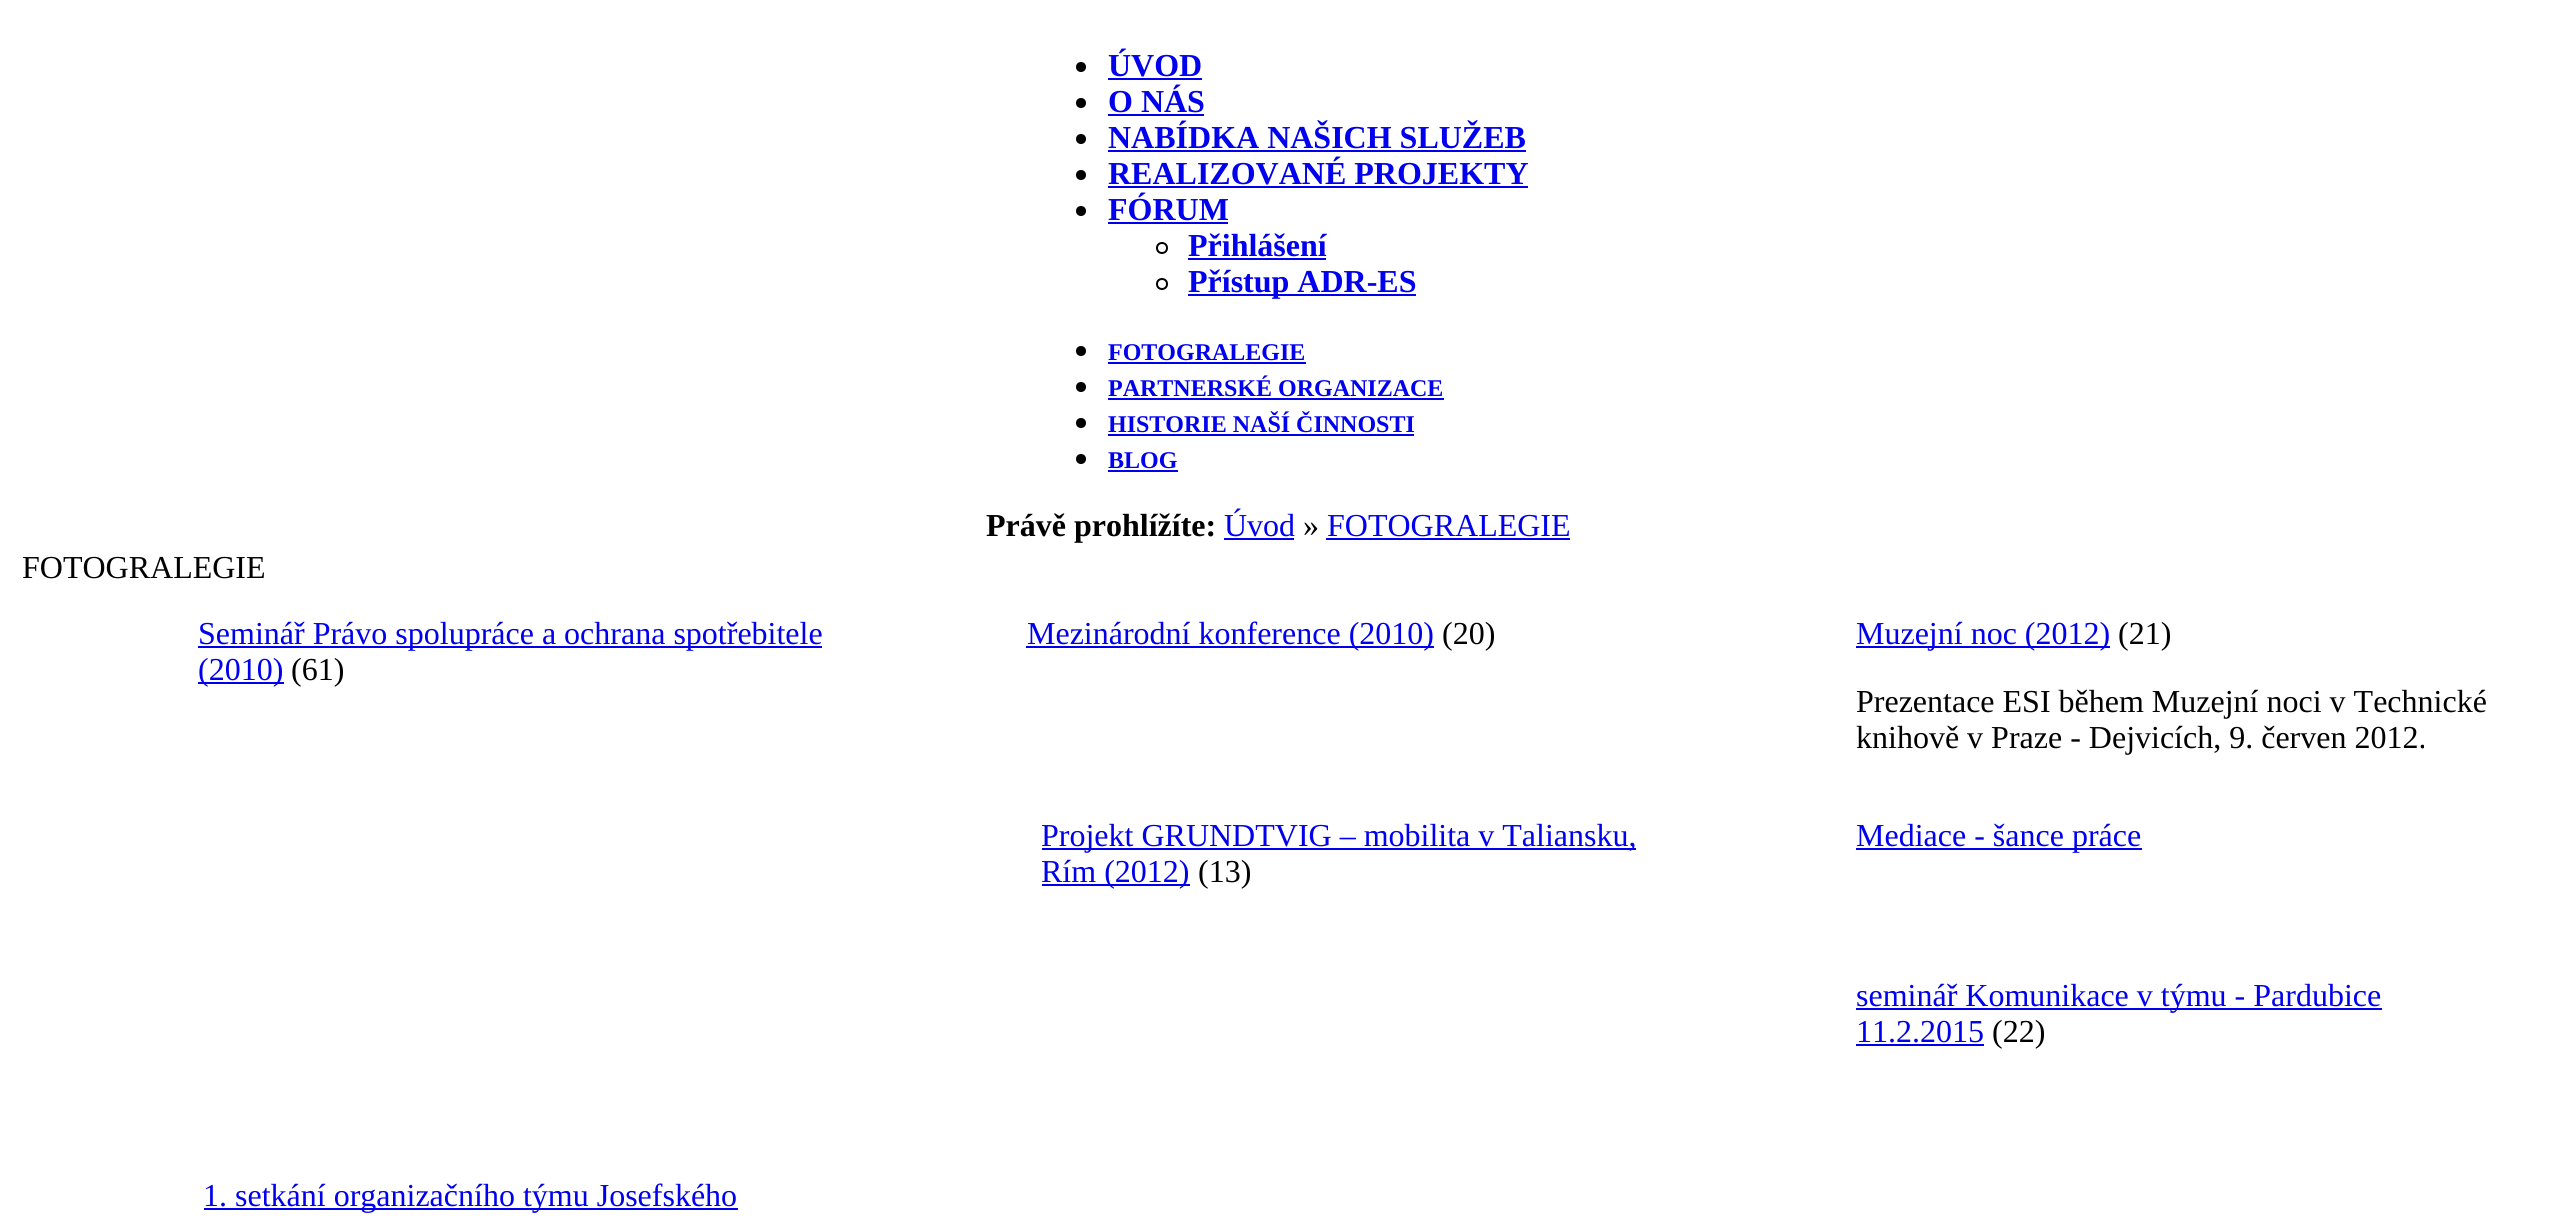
#include <cairo.h>
#include <math.h>
#include <stddef.h>

static cairo_t *c;
static void C(unsigned color){cairo_set_source_rgb(c, (color >> 16) / 255.0, (color >> 8 & 255) / 255.0, (color & 255) / 255.0);}
static void F(const char *family, double size, int italic, int bold){cairo_select_font_face(c, family, italic ? CAIRO_FONT_SLANT_ITALIC : CAIRO_FONT_SLANT_NORMAL,bold ? CAIRO_FONT_WEIGHT_BOLD : CAIRO_FONT_WEIGHT_NORMAL);cairo_set_font_size(c, size);}
static void T(double x, double y, const char *s){cairo_move_to(c, x, y);cairo_show_text(c, s);}
static void R(double x, double y, double w, double h){cairo_rectangle(c, x, y, w, h);cairo_fill(c);}
int main(void) {
cairo_surface_t *surface = cairo_image_surface_create(CAIRO_FORMAT_RGB24, 2556, 1216);
c = cairo_create(surface);
cairo_font_options_t *options = cairo_font_options_create();
cairo_font_options_set_hint_metrics(options, CAIRO_HINT_METRICS_OFF);
cairo_font_options_set_hint_style(options, CAIRO_HINT_STYLE_NONE);
cairo_set_font_options(c, options);
cairo_set_miter_limit(c, 4);
C(0xffffff);
cairo_paint(c);
C(0x000000);
cairo_arc(c,1081,67,5,0,2 * M_PI);
cairo_fill(c);
F("Liberation Serif",32,0,1);
C(0x0000ee);
T(1108,76,"ÚVOD");
R(1108,78,94,2);
C(0x000000);
cairo_new_path(c);
cairo_arc(c,1081,103,5,0,2 * M_PI);
cairo_fill(c);
C(0x0000ee);
T(1108,112,"O NÁS");
R(1108,114,96,2);
C(0x000000);
cairo_new_path(c);
cairo_arc(c,1081,139,5,0,2 * M_PI);
cairo_fill(c);
C(0x0000ee);
T(1108,148,"NABÍDKA NAŠICH SLUŽEB");
R(1108,150,418,2);
C(0x000000);
cairo_new_path(c);
cairo_arc(c,1081,175,5,0,2 * M_PI);
cairo_fill(c);
C(0x0000ee);
T(1108,184,"REALIZOVANÉ PROJEKTY");
R(1108,186,420,2);
C(0x000000);
cairo_new_path(c);
cairo_arc(c,1081,211,5,0,2 * M_PI);
cairo_fill(c);
C(0x0000ee);
T(1108,220,"FÓRUM");
R(1108,222,120,2);
cairo_new_path(c);
cairo_arc(c,1162,248,5,0,2 * M_PI);
C(0x000000);
cairo_stroke(c);
C(0x0000ee);
T(1188,256,"Přihlášení");
R(1188,258,138,2);
cairo_new_path(c);
cairo_arc(c,1162,284,5,0,2 * M_PI);
C(0x000000);
cairo_stroke(c);
C(0x0000ee);
R(1188,294,228,2);
T(1188,292,"Přístup ADR-ES");
C(0x000000);
cairo_new_path(c);
cairo_arc(c,1081,351,5,0,2 * M_PI);
cairo_fill(c);
F("Liberation Serif",24,0,1);
C(0x0000ee);
T(1108,360,"FOTOGRALEGIE");
R(1108,362,198,2);
C(0x000000);
cairo_new_path(c);
cairo_arc(c,1081,387,5,0,2 * M_PI);
cairo_fill(c);
C(0x0000ee);
T(1108,396,"PARTNERSKÉ ORGANIZACE");
R(1108,398,336,2);
C(0x000000);
cairo_new_path(c);
cairo_arc(c,1081,423,5,0,2 * M_PI);
cairo_fill(c);
C(0x0000ee);
T(1108,432,"HISTORIE NAŠÍ ČINNOSTI");
R(1108,434,306,2);
C(0x000000);
cairo_new_path(c);
cairo_arc(c,1081,459,5,0,2 * M_PI);
cairo_fill(c);
C(0x0000ee);
T(1108,468,"BLOG");
R(1108,470,70,2);
F("Liberation Serif",32,0,1);
C(0x000000);
T(986,536,"Právě prohlížíte:");
F("Liberation Serif",32,0,0);
C(0x0000ee);
T(1224,536,"Úvod");
C(0x000000);
T(1303,536,"»");
C(0x0000ee);
R(1224,538,70,2);
T(1327,536,"FOTOGRALEGIE");
R(1326,538,244,2);
C(0x000000);
T(22,578,"FOTOGRALEGIE");
C(0x0000ee);
R(198,646,624,2);
T(198,644,"Seminář Právo spolupráce a ochrana spotřebitele");
R(198,682,86,2);
T(198,680,"(2010)");
C(0x000000);
T(291,680,"(61)");
C(0x0000ee);
R(1026,646,408,2);
T(1027,644,"Mezinárodní konference (2010)");
C(0x000000);
T(1442,644,"(20)");
C(0x0000ee);
R(1856,646,254,2);
T(1856,644,"Muzejní noc (2012)");
C(0x000000);
T(2118,644,"(21)");
T(1856,712,"Prezentace ESI během Muzejní noci v Technické");
T(1856,748,"knihově v Praze - Dejvicích, 9. červen 2012.");
C(0x0000ee);
R(1042,848,594,2);
T(1041,846,"Projekt GRUNDTVIG – mobilita v Taliansku,");
R(1042,884,148,2);
T(1041,882,"Rím (2012)");
C(0x000000);
T(1198,882,"(13)");
C(0x0000ee);
R(1856,848,286,2);
T(1856,846,"Mediace - šance práce");
R(1856,1008,526,2);
T(1856,1006,"seminář Komunikace v týmu - Pardubice");
T(1856,1042,"11.2.2015");
R(1856,1044,128,2);
C(0x000000);
T(1992,1042,"(22)");
C(0x0000ee);
R(204,1208,534,2);
T(203,1206,"1. setkání organizačního týmu Josefského");
cairo_surface_write_to_png(surface, "o.png");
cairo_font_options_destroy(options);
cairo_destroy(c);
cairo_surface_destroy(surface);
return 0;
}
